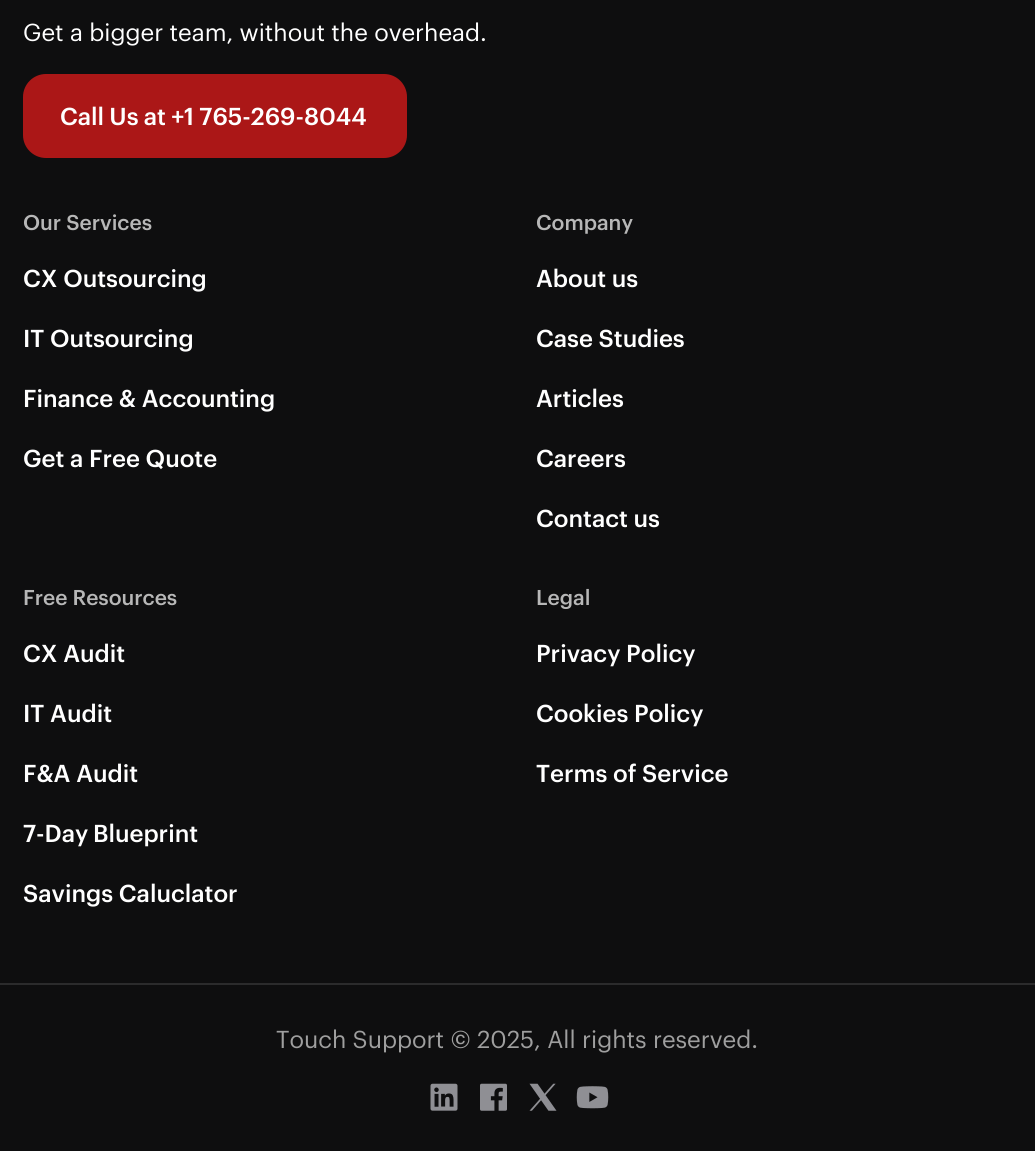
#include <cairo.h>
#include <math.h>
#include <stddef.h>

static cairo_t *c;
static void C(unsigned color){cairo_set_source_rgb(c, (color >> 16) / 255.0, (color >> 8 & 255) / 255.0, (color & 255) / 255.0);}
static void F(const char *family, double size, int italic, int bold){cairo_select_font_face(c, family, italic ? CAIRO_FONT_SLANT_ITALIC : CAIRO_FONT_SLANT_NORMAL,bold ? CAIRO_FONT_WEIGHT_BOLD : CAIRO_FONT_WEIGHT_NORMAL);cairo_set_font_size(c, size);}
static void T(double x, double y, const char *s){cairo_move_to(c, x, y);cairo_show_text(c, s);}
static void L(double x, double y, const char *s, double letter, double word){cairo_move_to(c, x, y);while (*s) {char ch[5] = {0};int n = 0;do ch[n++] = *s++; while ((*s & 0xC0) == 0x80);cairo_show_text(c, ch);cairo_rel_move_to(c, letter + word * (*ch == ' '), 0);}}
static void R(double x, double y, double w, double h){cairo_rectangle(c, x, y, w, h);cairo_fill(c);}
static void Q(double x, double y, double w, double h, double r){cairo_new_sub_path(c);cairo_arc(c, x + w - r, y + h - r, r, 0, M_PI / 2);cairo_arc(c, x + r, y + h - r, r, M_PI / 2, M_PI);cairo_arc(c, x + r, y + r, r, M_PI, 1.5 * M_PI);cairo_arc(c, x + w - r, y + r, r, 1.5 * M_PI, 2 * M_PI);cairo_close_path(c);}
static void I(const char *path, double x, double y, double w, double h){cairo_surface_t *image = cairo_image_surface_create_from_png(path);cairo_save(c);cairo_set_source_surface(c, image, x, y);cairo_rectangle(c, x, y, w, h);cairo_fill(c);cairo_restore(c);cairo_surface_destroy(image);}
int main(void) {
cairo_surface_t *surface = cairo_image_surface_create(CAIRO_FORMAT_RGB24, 1035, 1151);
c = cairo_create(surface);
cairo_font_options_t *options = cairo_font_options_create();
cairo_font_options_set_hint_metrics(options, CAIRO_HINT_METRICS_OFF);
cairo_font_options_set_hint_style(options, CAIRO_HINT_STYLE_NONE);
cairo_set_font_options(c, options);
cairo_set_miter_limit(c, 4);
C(0x0e0e0f);
cairo_paint(c);
F("Graphik",24,1,0);
C(0xffffff);
T(23,41,"Get a bigger team, without the overhead.");
C(0xab1717);
Q(24,75,382,82,22);
cairo_fill_preserve(c);
cairo_stroke(c);
F("Graphik Medium",24,0,0);
C(0xffffff);
L(60,125,"Call Us at +1 765-269-8044",0,-.5);
F("Graphik Medium",21,0,0);
C(0xb7b7b7);
T(23,230,"Our Services");
F("Graphik Medium",24,0,0);
C(0xffffff);
T(23,287,"CX Outsourcing");
T(23,347,"IT Outsourcing");
T(23,407,"Finance & Accounting");
T(23,467,"Get a Free Quote");
F("Graphik Medium",21,0,0);
C(0xb7b7b7);
T(536,230,"Company");
F("Graphik Medium",24,0,0);
C(0xffffff);
T(536,287,"About us");
T(536,347,"Case Studies");
T(536,407,"Articles");
T(536,467,"Careers");
T(536,527,"Contact us");
F("Graphik Medium",21,0,0);
C(0xb7b7b7);
T(23,605,"Free Resources");
F("Graphik Medium",24,0,0);
C(0xffffff);
T(23,662,"CX Audit");
T(23,722,"IT Audit");
T(23,782,"F&A Audit");
L(23,842,"7-Day Blueprint",0,-1);
T(23,902,"Savings Caluclator");
F("Graphik Medium",21,0,0);
C(0xb7b7b7);
T(536,605,"Legal");
F("Graphik Medium",24,0,0);
C(0xffffff);
T(536,662,"Privacy Policy");
T(536,722,"Cookies Policy");
T(536,782,"Terms of Service");
C(0x2b2b2c);
R(0,983,1035,2);
F("Graphik",24,1,0);
C(0x9f9f9f);
T(276,1048,"Touch Support © 2025, All rights reserved.");
I("1.png",430,1083,28,28);
I("2.png",480,1083,27,28);
I("3.png",529,1083,28,28);
I("4.png",576,1086,33,23);
cairo_surface_write_to_png(surface, "o.png");
cairo_font_options_destroy(options);
cairo_destroy(c);
cairo_surface_destroy(surface);
return 0;
}
